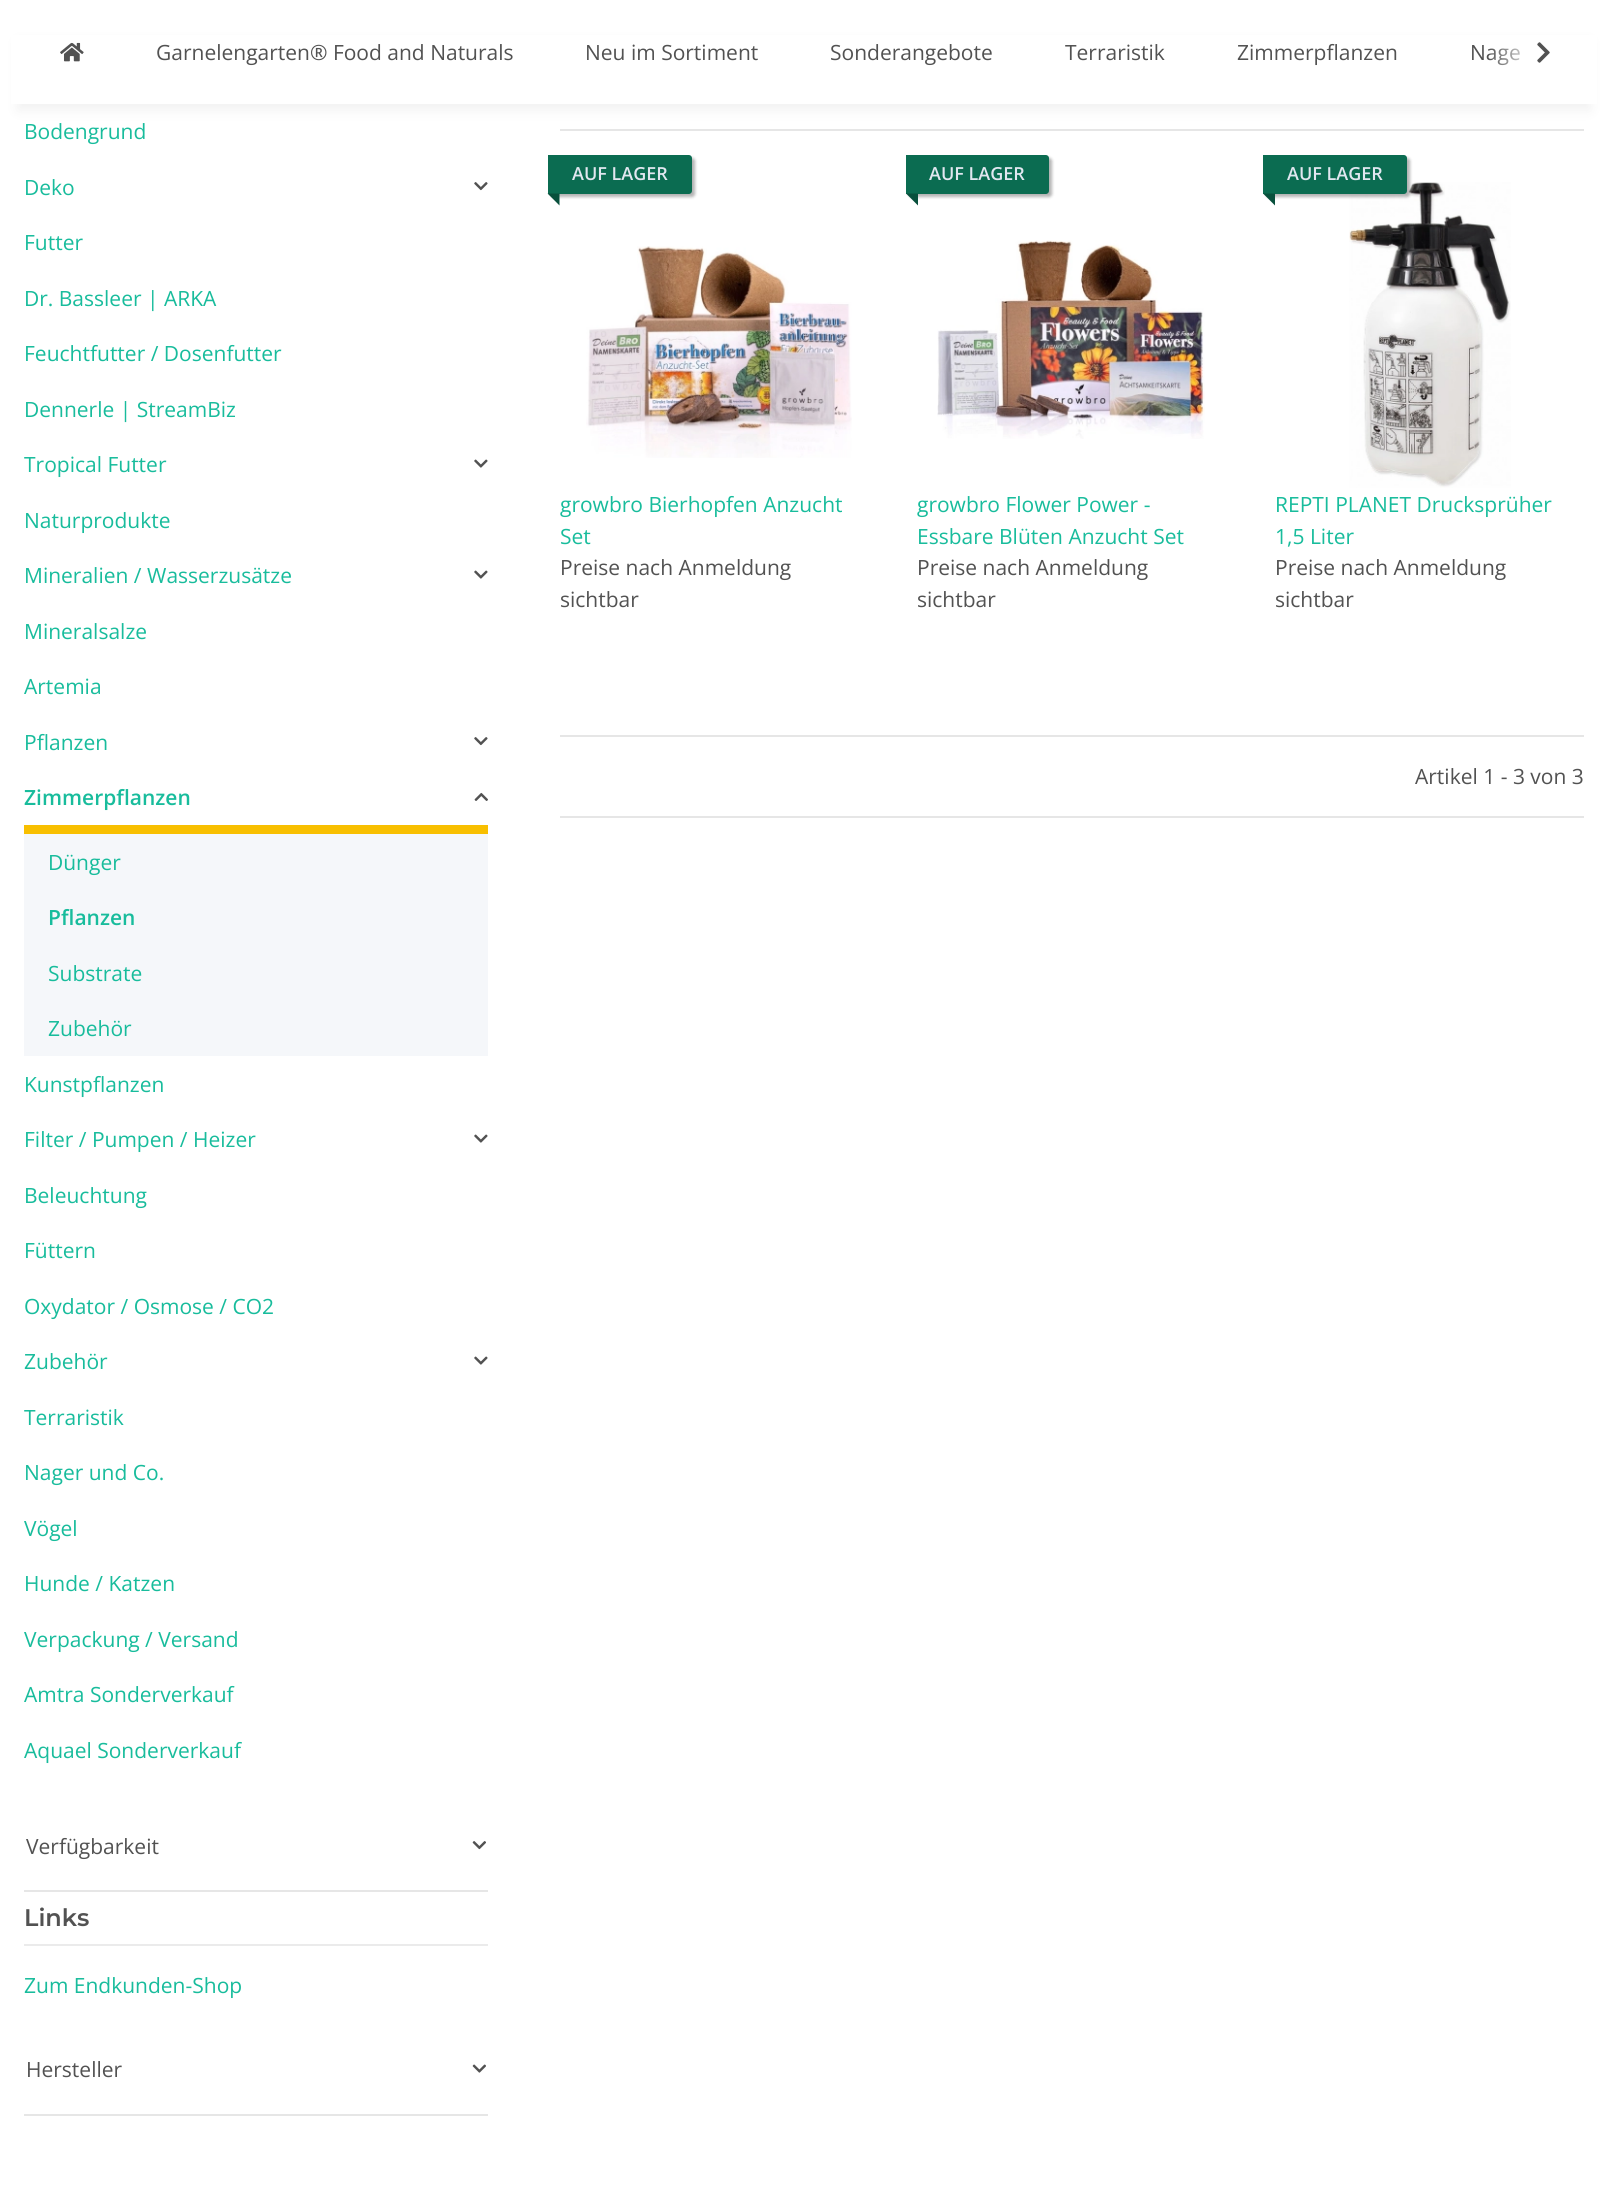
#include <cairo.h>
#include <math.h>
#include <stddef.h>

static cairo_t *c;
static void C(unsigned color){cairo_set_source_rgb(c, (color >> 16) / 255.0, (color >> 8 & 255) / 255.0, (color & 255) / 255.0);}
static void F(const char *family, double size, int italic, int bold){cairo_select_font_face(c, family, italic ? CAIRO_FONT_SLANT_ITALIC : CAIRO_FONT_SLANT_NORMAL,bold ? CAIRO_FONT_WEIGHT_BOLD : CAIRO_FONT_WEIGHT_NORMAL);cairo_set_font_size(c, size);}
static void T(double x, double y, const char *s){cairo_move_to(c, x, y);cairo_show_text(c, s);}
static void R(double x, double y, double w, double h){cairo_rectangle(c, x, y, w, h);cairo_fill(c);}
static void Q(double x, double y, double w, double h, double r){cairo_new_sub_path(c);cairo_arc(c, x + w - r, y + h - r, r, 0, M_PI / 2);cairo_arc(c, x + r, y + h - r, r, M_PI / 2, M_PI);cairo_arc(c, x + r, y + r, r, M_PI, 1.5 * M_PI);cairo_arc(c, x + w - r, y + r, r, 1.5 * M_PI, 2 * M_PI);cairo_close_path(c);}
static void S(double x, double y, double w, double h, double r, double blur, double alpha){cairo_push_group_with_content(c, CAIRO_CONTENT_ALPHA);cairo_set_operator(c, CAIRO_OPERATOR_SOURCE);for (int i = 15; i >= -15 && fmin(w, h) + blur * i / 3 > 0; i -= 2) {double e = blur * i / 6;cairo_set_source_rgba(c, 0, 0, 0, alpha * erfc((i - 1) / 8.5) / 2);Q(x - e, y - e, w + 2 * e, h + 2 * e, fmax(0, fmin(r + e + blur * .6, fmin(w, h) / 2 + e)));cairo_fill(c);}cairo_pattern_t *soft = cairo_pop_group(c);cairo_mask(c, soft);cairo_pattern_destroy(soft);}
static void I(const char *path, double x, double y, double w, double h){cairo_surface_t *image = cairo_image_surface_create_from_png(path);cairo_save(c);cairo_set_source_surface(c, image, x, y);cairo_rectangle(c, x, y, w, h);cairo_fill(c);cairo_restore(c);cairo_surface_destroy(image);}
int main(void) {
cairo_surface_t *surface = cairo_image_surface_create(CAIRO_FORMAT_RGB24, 1608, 2206);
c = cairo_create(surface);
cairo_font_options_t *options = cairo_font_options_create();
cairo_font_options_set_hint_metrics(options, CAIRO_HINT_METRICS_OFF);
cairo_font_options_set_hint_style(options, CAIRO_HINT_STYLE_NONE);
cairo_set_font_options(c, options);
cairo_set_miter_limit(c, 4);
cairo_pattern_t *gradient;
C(0xffffff);
cairo_paint(c);
C(0xe6e6e6);
R(560,129,1024,2);
C(0x000000);
S(18,42,1572,68,0,7,.06);
C(0xffffff);
R(11,35,1586,69);
F("Open Sans",21,0,0);
C(0x525252);
T(1470,60,"Nage");
gradient = cairo_pattern_create_linear(1488,53,1560,53);
cairo_pattern_add_color_stop_rgba(gradient,0,1,1,1,.01);
cairo_pattern_add_color_stop_rgba(gradient,.7,1,1,1,1);
cairo_set_source(c,gradient);
cairo_pattern_destroy(gradient);
R(1489,48,31,17);
I("1.png",1537,42,13,21);
I("2.png",60,42,24,20);
C(0x525252);
T(156,60,"Garnelengarten® Food and Naturals");
T(585,60,"Neu im Sortiment");
T(830,60,"Sonderangebote");
T(1065,60,"Terraristik");
T(1237,60,"Zimmerpflanzen");
C(0x18bc9c);
T(24,139,"Bodengrund");
T(24,195,"Deko");
I("3.png",474,182,14,9);
T(24,250,"Futter");
T(24,306,"Dr. Bassleer | ARKA");
T(24,361,"Feuchtfutter / Dosenfutter");
T(24,417,"Dennerle | StreamBiz");
T(24,472,"Tropical Futter");
I("4.png",474,459,14,9);
T(24,528,"Naturprodukte");
T(24,583,"Mineralien / Wasserzusätze");
I("4.png",474,570,14,9);
T(24,639,"Mineralsalze");
T(24,694,"Artemia");
T(24,750,"Pflanzen");
I("3.png",474,737,14,9);
C(0xf8bf00);
R(24,825,464,9);
F("Open Sans SemiBold",21,0,0);
C(0x18bc9c);
T(24,805,"Zimmerpflanzen");
I("5.png",474,792,14,9);
C(0xf5f7fa);
R(24,834,464,222);
F("Open Sans",21,0,0);
C(0x18bc9c);
T(48,870,"Dünger");
F("Open Sans SemiBold",21,0,0);
T(48,925,"Pflanzen");
F("Open Sans",21,0,0);
T(48,981,"Substrate");
T(48,1036,"Zubehör");
T(24,1092,"Kunstpflanzen");
T(24,1147,"Filter / Pumpen / Heizer");
I("4.png",474,1134,14,9);
T(24,1203,"Beleuchtung");
T(24,1258,"Füttern");
T(24,1314,"Oxydator / Osmose / CO2");
T(24,1369,"Zubehör");
I("4.png",474,1356,14,9);
T(24,1425,"Terraristik");
T(24,1480,"Nager und Co.");
T(24,1536,"Vögel");
T(24,1591,"Hunde / Katzen");
T(24,1647,"Verpackung / Versand");
T(24,1702,"Amtra Sonderverkauf");
T(24,1758,"Aquael Sonderverkauf");
C(0x525252);
T(26,1854,"Verfügbarkeit");
I("6.png",472,1841,14,9);
C(0xe6e6e6);
R(24,1890,464,2);
C(0xebebeb);
R(24,1944,464,2);
F("Montserrat SemiBold",24,0,0);
C(0x525252);
T(24,1926,"Links");
F("Open Sans",21,0,0);
C(0x18bc9c);
T(24,1993,"Zum Endkunden-Shop");
C(0x525252);
T(26,2077,"Hersteller");
I("7.png",472,2064,14,9);
C(0xe6e6e6);
R(24,2114,464,2);
C(0x000000);
S(551,158,144,39,3,1.5,.3);
C(0x0b6c51);
cairo_new_path(c);
cairo_move_to(c,548,155);
cairo_line_to(c,689,155);
cairo_curve_to(c,690.5,155,692,156.5,692,158);
cairo_line_to(c,692,191);
cairo_curve_to(c,692,192.5,690.5,194,689,194);
cairo_line_to(c,548,194);
cairo_close_path(c);
cairo_fill(c);
F("Open Sans SemiBold",18,0,0);
C(0xe1e7f0);
T(572,180,"AUF LAGER");
C(0x08503c);
cairo_new_path(c);
cairo_move_to(c,559.5,193.5);
cairo_line_to(c,559.5,205.5);
cairo_line_to(c,547.5,193.5);
cairo_close_path(c);
cairo_fill(c);
I("8.png",586,246,266,212);
F("Open Sans",21,0,0);
C(0x18bc9c);
T(560,512,"growbro Bierhopfen Anzucht");
T(560,544,"Set");
C(0x525252);
T(560,575,"Preise nach Anmeldung");
T(560,607,"sichtbar");
C(0x000000);
S(909,158,143,39,3,1.5,.3);
C(0x0b6c51);
cairo_new_path(c);
cairo_move_to(c,906,155);
cairo_line_to(c,1046,155);
cairo_curve_to(c,1047.5,155,1049,156.5,1049,158);
cairo_line_to(c,1049,191);
cairo_curve_to(c,1049,192.5,1047.5,194,1046,194);
cairo_line_to(c,906,194);
cairo_close_path(c);
cairo_fill(c);
F("Open Sans SemiBold",18,0,0);
C(0xe1e7f0);
T(929,180,"AUF LAGER");
C(0x08503c);
cairo_new_path(c);
cairo_move_to(c,918,193.5);
cairo_line_to(c,918,205.5);
cairo_line_to(c,906,193.5);
cairo_close_path(c);
cairo_fill(c);
I("9.png",937,240,268,199);
F("Open Sans",21,0,0);
C(0x18bc9c);
T(917,512,"growbro Flower Power -");
T(917,544,"Essbare Blüten Anzucht Set");
C(0x525252);
T(917,575,"Preise nach Anmeldung");
T(917,607,"sichtbar");
I("10.png",1349,182,162,306);
C(0x000000);
S(1266,158,144,39,3,1.5,.3);
C(0x0b6c51);
cairo_new_path(c);
cairo_move_to(c,1263,155);
cairo_line_to(c,1404,155);
cairo_curve_to(c,1405.5,155,1407,156.5,1407,158);
cairo_line_to(c,1407,191);
cairo_curve_to(c,1407,192.5,1405.5,194,1404,194);
cairo_line_to(c,1263,194);
cairo_close_path(c);
cairo_fill(c);
F("Open Sans SemiBold",18,0,0);
C(0xe1e7f0);
T(1287,180,"AUF LAGER");
C(0x08503c);
cairo_new_path(c);
cairo_move_to(c,1275,193.5);
cairo_line_to(c,1275,205.5);
cairo_line_to(c,1263,193.5);
cairo_close_path(c);
cairo_fill(c);
F("Open Sans",21,0,0);
C(0x18bc9c);
T(1275,512,"REPTI PLANET Drucksprüher");
T(1275,544,"1,5 Liter");
C(0x525252);
T(1275,575,"Preise nach Anmeldung");
T(1275,607,"sichtbar");
C(0xe6e6e6);
R(560,735,1024,2);
C(0x525252);
T(1415,784,"Artikel 1 - 3 von 3");
C(0xe6e6e6);
R(560,816,1024,2);
cairo_surface_write_to_png(surface, "o.png");
cairo_font_options_destroy(options);
cairo_destroy(c);
cairo_surface_destroy(surface);
return 0;
}
